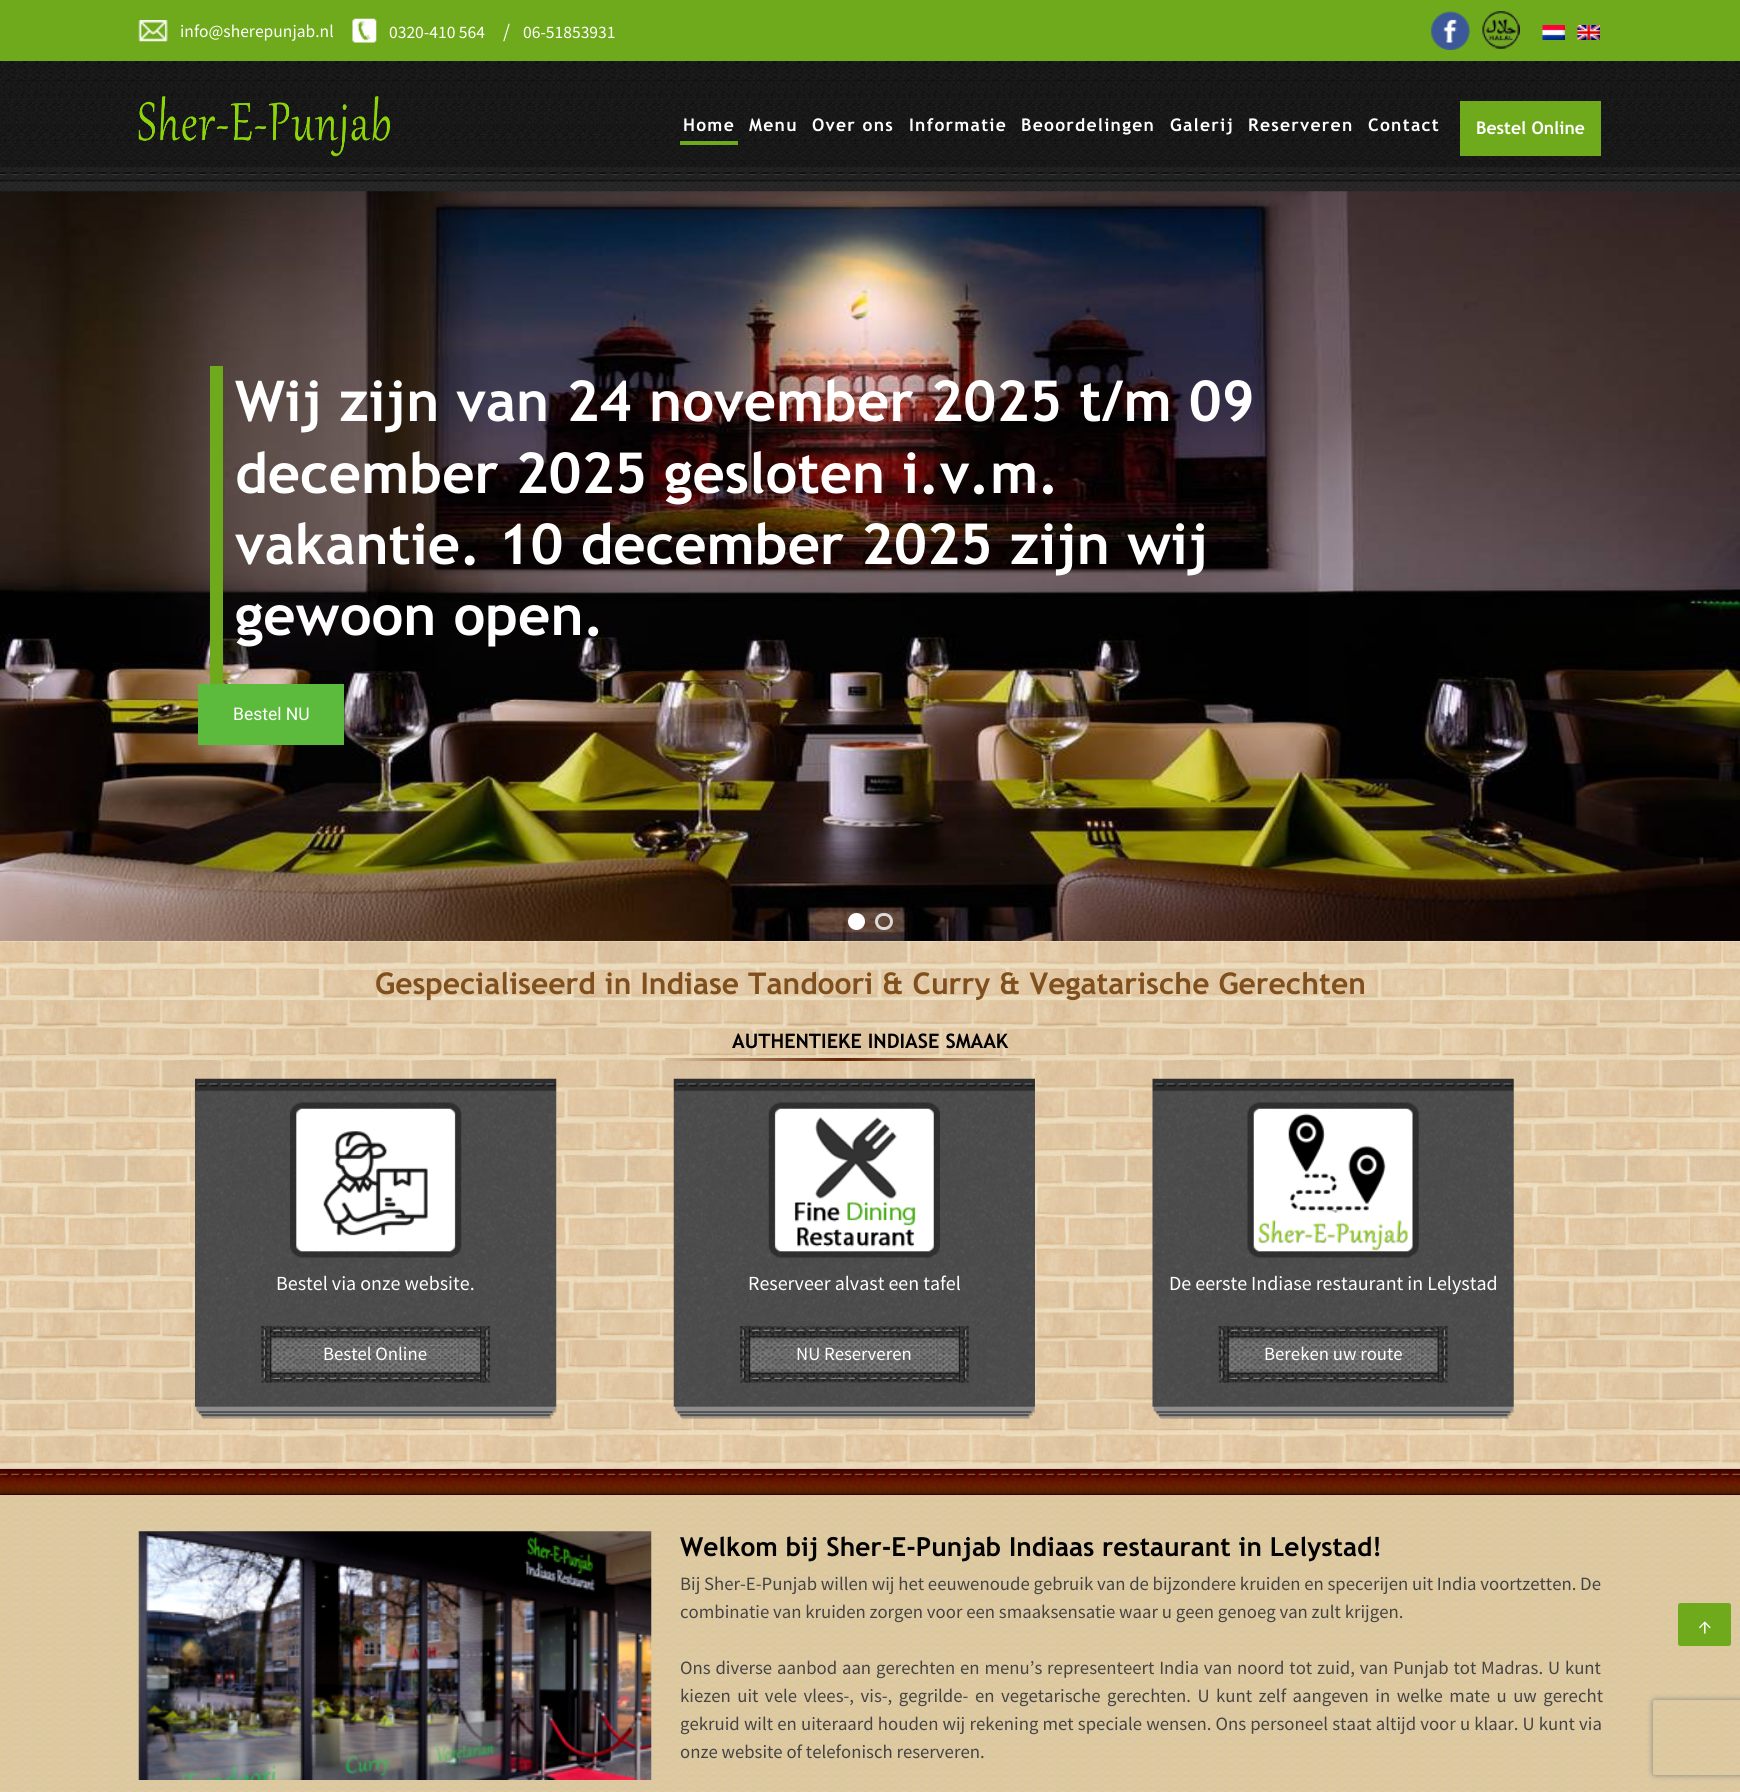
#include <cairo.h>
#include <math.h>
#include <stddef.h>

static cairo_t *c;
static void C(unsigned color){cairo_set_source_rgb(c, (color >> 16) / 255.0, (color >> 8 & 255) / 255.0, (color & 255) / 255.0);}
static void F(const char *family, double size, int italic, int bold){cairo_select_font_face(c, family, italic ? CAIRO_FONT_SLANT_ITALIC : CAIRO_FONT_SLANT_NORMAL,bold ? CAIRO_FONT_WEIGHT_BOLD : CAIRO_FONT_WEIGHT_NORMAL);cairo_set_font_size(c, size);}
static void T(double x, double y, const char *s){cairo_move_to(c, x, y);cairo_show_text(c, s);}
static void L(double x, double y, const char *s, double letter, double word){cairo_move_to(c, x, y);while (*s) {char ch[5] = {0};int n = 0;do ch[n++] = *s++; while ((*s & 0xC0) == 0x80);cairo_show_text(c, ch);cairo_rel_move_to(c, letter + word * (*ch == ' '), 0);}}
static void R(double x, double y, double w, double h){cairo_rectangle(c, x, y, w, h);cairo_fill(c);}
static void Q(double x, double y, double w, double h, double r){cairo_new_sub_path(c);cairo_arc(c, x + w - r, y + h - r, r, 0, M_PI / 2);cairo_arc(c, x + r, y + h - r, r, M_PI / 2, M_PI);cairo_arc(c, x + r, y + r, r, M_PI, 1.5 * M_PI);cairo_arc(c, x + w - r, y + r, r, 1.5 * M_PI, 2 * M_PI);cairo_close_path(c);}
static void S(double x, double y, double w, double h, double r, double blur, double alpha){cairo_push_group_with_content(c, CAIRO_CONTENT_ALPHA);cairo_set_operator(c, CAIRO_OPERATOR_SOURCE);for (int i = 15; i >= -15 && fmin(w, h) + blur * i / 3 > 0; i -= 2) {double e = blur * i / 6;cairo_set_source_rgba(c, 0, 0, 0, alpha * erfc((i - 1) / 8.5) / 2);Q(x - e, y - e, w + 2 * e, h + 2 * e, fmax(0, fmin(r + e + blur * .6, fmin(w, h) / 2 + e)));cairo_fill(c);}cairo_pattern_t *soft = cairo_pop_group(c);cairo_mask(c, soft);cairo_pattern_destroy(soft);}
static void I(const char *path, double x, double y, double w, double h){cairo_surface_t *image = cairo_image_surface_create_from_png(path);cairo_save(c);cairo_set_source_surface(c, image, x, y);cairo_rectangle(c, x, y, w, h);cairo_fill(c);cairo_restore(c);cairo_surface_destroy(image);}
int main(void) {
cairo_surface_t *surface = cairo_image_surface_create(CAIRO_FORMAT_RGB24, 1740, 1792);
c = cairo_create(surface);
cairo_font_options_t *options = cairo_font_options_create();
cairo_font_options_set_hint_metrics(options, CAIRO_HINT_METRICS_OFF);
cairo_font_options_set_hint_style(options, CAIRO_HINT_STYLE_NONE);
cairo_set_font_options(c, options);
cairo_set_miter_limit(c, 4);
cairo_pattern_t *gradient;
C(0xffffff);
cairo_paint(c);
I("9.png",0,191,1740,750);
I("1.png",0,61,1740,131);
C(0x6faa1c);
R(0,0,1740,61);
I("2.png",138,20,30,22);
F("Source Sans Pro",17.5,0,0);
C(0xffffff);
T(180,37,"info@sherepunjab.nl");
I("3.png",352,18,25,25);
T(389,38,"0320-410 564");
F("Source Sans Pro",20,0,0);
L(503,38,"/",1,0);
F("Source Sans Pro",17.5,0,0);
T(523,38,"06-51853931");
I("4.png",1431,11,39,39);
I("5.png",1482,11,38,38);
I("6.png",1542,25,23,15);
I("7.png",1577,25,23,15);
I("8.png",138,96,252,61);
F("Trebuchet MS",17.5,0,1);
L(683,131,"Home",1.25,0);
C(0x6faa1c);
R(680,141,58,4);
C(0xffffff);
L(749,131,"Menu",1.25,0);
L(812,131,"Over ons",1.25,0);
L(909,131,"Informatie",1.25,0);
L(1021,131,"Beoordelingen",1.25,0);
L(1170,131,"Galerij",1.25,0);
L(1248,131,"Reserveren",1.25,0);
L(1368,131,"Contact",1.25,0);
C(0x6faa1c);
R(1460,101,141,55);
C(0xffffff);
T(1476,134,"Bestel Online");
C(0x6faa1c);
R(210,366,13,318);
F("Trebuchet MS",56.25,0,1);
C(0xffffff);
T(235,421,"Wij zijn van 24 november 2025 t/m 09");
T(235,493,"december 2025 gesloten i.v.m.");
T(235,564,"vakantie. 10 december 2025 zijn wij");
T(235,635,"gewoon open.");
C(0x5cba3c);
R(198,684,146,61);
F("Roboto",17.5,0,0);
C(0xffffff);
T(233,720,"Bestel NU");
cairo_new_path(c);
cairo_arc(c,856.5,921.5,7,0,2 * M_PI);
cairo_fill_preserve(c);
cairo_set_line_width(c,3);
cairo_stroke(c);
Q(876.5,914.5,15,14,7);
cairo_set_source_rgba(c,1,1,1,0.8);
cairo_stroke(c);
I("20.png",0,1468,1740,324);
I("10.png",0,941,1740,528);
F("Trebuchet MS",30,0,1);
C(0x7f4f1e);
T(375,994,"Gespecialiseerd in Indiase Tandoori & Curry & Vegatarische Gerechten");
F("Trebuchet MS",20,0,1);
C(0x000000);
T(732,1048,"AUTHENTIEKE INDIASE SMAAK");
gradient = cairo_pattern_create_linear(665,1059,1021,1059);
cairo_pattern_add_color_stop_rgba(gradient,0,0.867,0.765,0.62,1);
cairo_pattern_add_color_stop_rgba(gradient,.5,0.384,0.125,0,1);
cairo_pattern_add_color_stop_rgba(gradient,1,0.867,0.765,0.62,1);
cairo_set_source(c,gradient);
cairo_pattern_destroy(gradient);
R(665,1058,356,3);
I("11.png",195,1078,362,341);
I("12.png",290,1102,172,156);
F("Source Sans Pro",20,0,0);
C(0xffffff);
T(276,1290,"Bestel via onze website.");
I("13.png",261,1326,229,57);
F("Source Sans Pro",18.75,0,0);
T(323,1360,"Bestel Online");
I("14.png",673,1078,362,341);
I("15.png",768,1102,172,156);
F("Source Sans Pro",20,0,0);
T(748,1290,"Reserveer alvast een tafel");
I("16.png",740,1326,229,57);
F("Source Sans Pro",18.75,0,0);
T(796,1360,"NU Reserveren");
I("17.png",1152,1078,362,341);
I("18.png",1247,1102,172,156);
F("Source Sans Pro",20,0,0);
T(1169,1290,"De eerste Indiase restaurant in Lelystad");
I("19.png",1218,1326,230,57);
F("Source Sans Pro",18.75,0,0);
T(1264,1360,"Bereken uw route");
I("21.png",138,1531,514,249);
F("Trebuchet MS",26.25,0,1);
C(0x000000);
T(680,1556,"Welkom bij Sher-E-Punjab Indiaas restaurant in Lelystad!");
F("Source Sans Pro",18.75,0,0);
C(0x444444);
T(680,1590,"Bij Sher-E-Punjab willen wij het eeuwenoude gebruik van de bijzondere kruiden en specerijen uit India voortzetten. De");
T(680,1618,"combinatie van kruiden zorgen voor een smaaksensatie waar u geen genoeg van zult krijgen.");
L(680,1674,"Ons diverse aanbod aan gerechten en menu’s representeert India van noord tot zuid, van Punjab tot Madras. U kunt",0,1.1);
L(680,1702,"kiezen uit vele vlees-, vis-, gegrilde- en vegetarische gerechten. U kunt zelf aangeven in welke mate u uw gerecht",0,2.75);
L(680,1730,"gekruid wilt en uiteraard houden wij rekening met speciale wensen. Ons personeel staat altijd voor u klaar. U kunt via",0,.4);
T(680,1758,"onze website of telefonisch reserveren.");
C(0x6faa1c);
Q(1678,1603,53,43,2.5);
cairo_fill(c);
F("Source Sans Pro",22,0,0);
C(0xffffff);
T(1698,1633,"↑");
cairo_save(c);
cairo_set_fill_rule(c,CAIRO_FILL_RULE_EVEN_ODD);
cairo_new_path(c);
cairo_move_to(c,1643,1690);
cairo_line_to(c,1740,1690);
cairo_line_to(c,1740,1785);
cairo_line_to(c,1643,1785);
cairo_close_path(c);
cairo_move_to(c,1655.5,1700);
cairo_line_to(c,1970.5,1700);
cairo_curve_to(c,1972,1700,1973,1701,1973,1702.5);
cairo_line_to(c,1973,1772.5);
cairo_curve_to(c,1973,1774,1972,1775,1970.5,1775);
cairo_line_to(c,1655.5,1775);
cairo_curve_to(c,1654,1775,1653,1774,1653,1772.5);
cairo_line_to(c,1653,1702.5);
cairo_curve_to(c,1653,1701,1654,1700,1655.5,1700);
cairo_close_path(c);
cairo_clip(c);
C(0x808080);
S(1653,1700,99,75,2.5,3,1);
cairo_restore(c);
cairo_surface_write_to_png(surface, "o.png");
cairo_font_options_destroy(options);
cairo_destroy(c);
cairo_surface_destroy(surface);
return 0;
}
